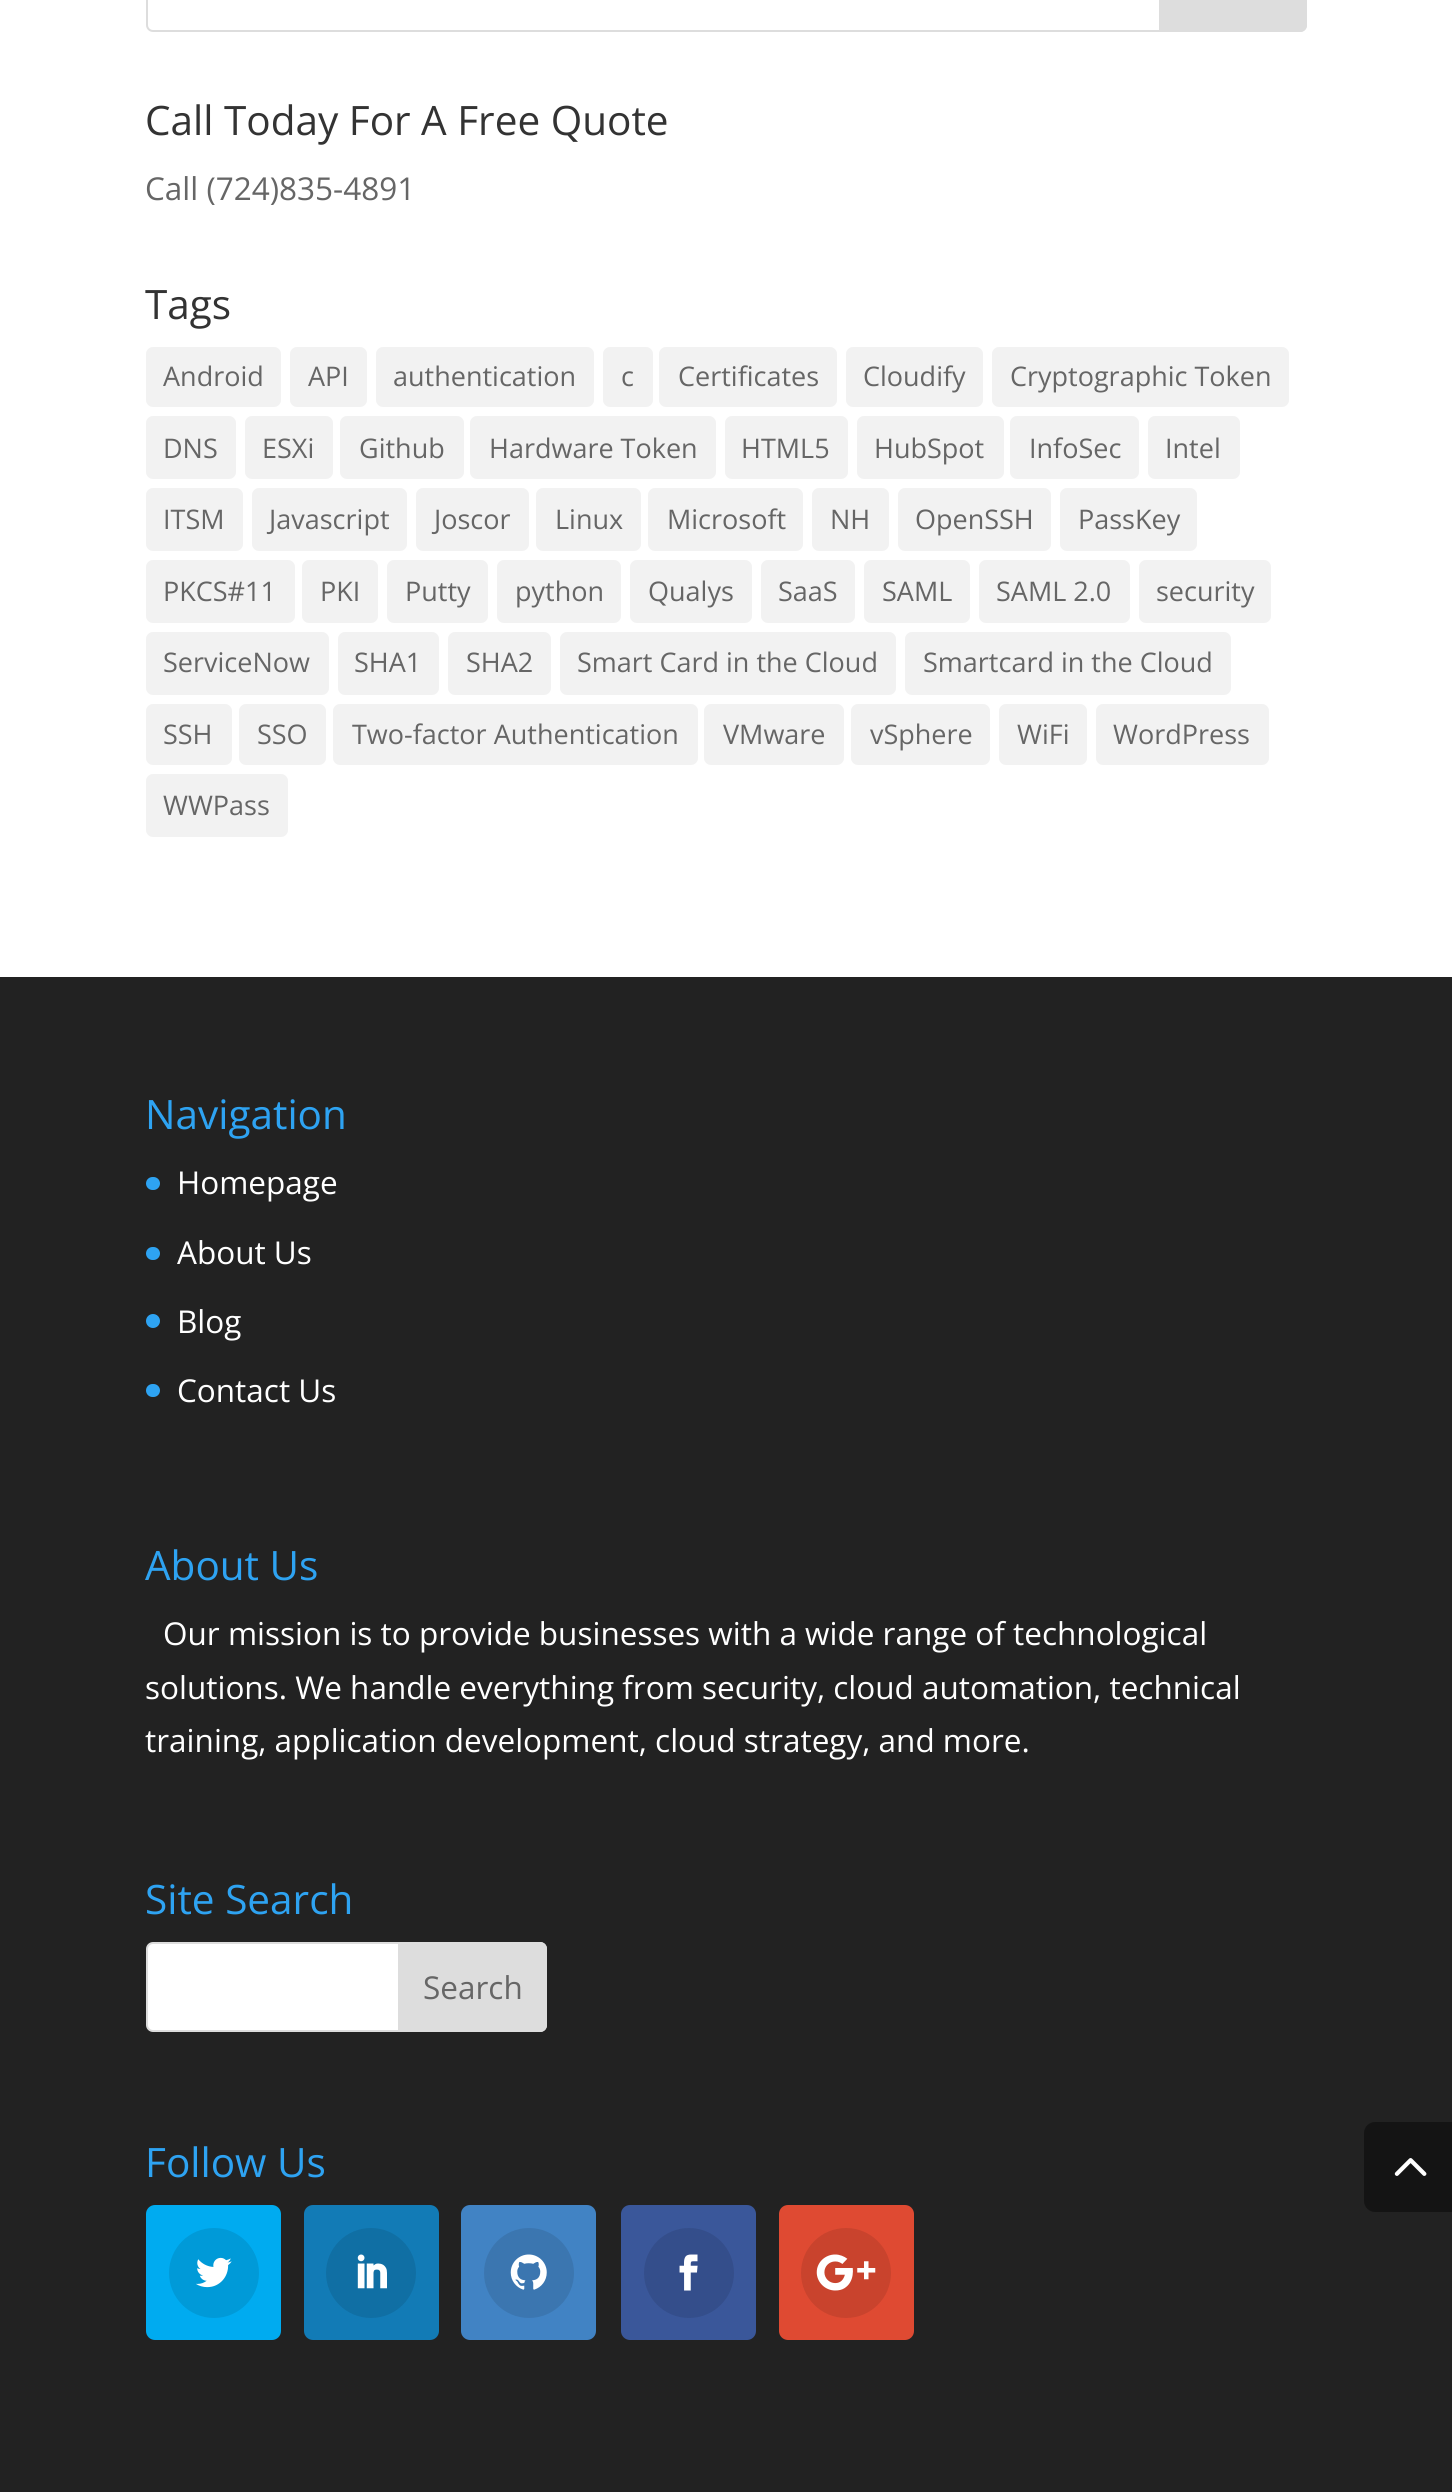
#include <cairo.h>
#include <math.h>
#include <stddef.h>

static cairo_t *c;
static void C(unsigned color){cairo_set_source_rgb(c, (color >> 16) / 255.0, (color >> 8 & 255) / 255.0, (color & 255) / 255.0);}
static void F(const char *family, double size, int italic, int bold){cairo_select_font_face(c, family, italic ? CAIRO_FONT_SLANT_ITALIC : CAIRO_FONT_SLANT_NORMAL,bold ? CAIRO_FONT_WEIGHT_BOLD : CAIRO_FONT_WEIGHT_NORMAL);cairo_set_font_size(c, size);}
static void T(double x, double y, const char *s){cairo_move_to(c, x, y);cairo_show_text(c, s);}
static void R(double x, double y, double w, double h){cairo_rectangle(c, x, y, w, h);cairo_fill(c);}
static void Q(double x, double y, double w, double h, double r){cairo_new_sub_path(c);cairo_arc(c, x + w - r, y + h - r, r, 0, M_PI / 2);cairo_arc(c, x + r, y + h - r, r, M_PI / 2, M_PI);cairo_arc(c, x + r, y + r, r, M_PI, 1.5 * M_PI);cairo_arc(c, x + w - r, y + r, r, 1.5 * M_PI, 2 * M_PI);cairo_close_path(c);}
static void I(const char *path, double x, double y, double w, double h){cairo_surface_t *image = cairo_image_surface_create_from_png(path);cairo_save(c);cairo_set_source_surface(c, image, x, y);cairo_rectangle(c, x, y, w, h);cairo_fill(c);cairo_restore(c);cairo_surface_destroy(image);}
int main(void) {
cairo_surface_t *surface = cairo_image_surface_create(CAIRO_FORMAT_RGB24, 1452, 2492);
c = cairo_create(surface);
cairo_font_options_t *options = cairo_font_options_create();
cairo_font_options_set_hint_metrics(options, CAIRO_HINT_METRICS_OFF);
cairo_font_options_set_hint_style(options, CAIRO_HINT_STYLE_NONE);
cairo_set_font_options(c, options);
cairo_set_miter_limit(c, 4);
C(0xffffff);
cairo_paint(c);
Q(147,-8,1159,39,6);
C(0xdddddd);
cairo_stroke(c);
cairo_new_path(c);
cairo_move_to(c,1160,-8);
cairo_line_to(c,1300,-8);
cairo_curve_to(c,1303.5,-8,1306,-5.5,1306,-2);
cairo_line_to(c,1306,25);
cairo_curve_to(c,1306,28.5,1303.5,31,1300,31);
cairo_line_to(c,1160,31);
cairo_close_path(c);
cairo_fill_preserve(c);
cairo_stroke(c);
F("Open Sans",40.5,0,0);
C(0x333333);
T(145,135,"Call Today For A Free Quote");
F("Open Sans",31.5,0,0);
C(0x666666);
T(145,200,"Call (724)835-4891");
F("Open Sans",40.5,0,0);
C(0x333333);
T(145,319,"Tags");
C(0xf2f2f2);
Q(146,347,135,60,7);
cairo_fill(c);
F("Open Sans",27,0,0);
C(0x666666);
T(163,386,"Android");
C(0xf2f2f2);
Q(290,347,77,60,7);
cairo_fill(c);
C(0x666666);
T(308,386,"API");
C(0xf2f2f2);
Q(376,347,218,60,7);
cairo_fill(c);
C(0x666666);
T(393,386,"authentication");
C(0xf2f2f2);
Q(603,347,50,60,7);
cairo_fill(c);
C(0x666666);
T(621,386,"c");
C(0xf2f2f2);
Q(659,347,178,60,7);
cairo_fill(c);
C(0x666666);
T(678,386,"Certificates");
C(0xf2f2f2);
Q(846,347,137,60,7);
cairo_fill(c);
C(0x666666);
T(863,386,"Cloudify");
C(0xf2f2f2);
Q(992,347,297,60,7);
cairo_fill(c);
C(0x666666);
T(1010,386,"Cryptographic Token");
C(0xf2f2f2);
Q(146,416,90,63,7);
cairo_fill(c);
C(0x666666);
T(163,458,"DNS");
C(0xf2f2f2);
Q(245,416,88,63,7);
cairo_fill(c);
C(0x666666);
T(262,458,"ESXi");
C(0xf2f2f2);
Q(340,416,124,63,7);
cairo_fill(c);
C(0x666666);
T(359,458,"Github");
C(0xf2f2f2);
Q(470,416,246,63,7);
cairo_fill(c);
C(0x666666);
T(489,458,"Hardware Token");
C(0xf2f2f2);
Q(725,416,123,63,7);
cairo_fill(c);
C(0x666666);
T(741,458,"HTML5");
C(0xf2f2f2);
Q(857,416,147,63,7);
cairo_fill(c);
C(0x666666);
T(874,458,"HubSpot");
C(0xf2f2f2);
Q(1010,416,129,63,7);
cairo_fill(c);
C(0x666666);
T(1029,458,"InfoSec");
C(0xf2f2f2);
Q(1148,416,92,63,7);
cairo_fill(c);
C(0x666666);
T(1165,458,"Intel");
C(0xf2f2f2);
Q(146,488,97,63,7);
cairo_fill(c);
C(0x666666);
T(163,529,"ITSM");
C(0xf2f2f2);
Q(252,488,155,63,7);
cairo_fill(c);
C(0x666666);
T(269,529,"Javascript");
C(0xf2f2f2);
Q(416,488,113,63,7);
cairo_fill(c);
C(0x666666);
T(434,529,"Joscor");
C(0xf2f2f2);
Q(536,488,105,63,7);
cairo_fill(c);
C(0x666666);
T(555,529,"Linux");
C(0xf2f2f2);
Q(648,488,155,63,7);
cairo_fill(c);
C(0x666666);
T(667,529,"Microsoft");
C(0xf2f2f2);
Q(812,488,77,63,7);
cairo_fill(c);
C(0x666666);
T(830,529,"NH");
C(0xf2f2f2);
Q(898,488,153,63,7);
cairo_fill(c);
C(0x666666);
T(915,529,"OpenSSH");
C(0xf2f2f2);
Q(1060,488,137,63,7);
cairo_fill(c);
C(0x666666);
T(1078,529,"PassKey");
C(0xf2f2f2);
Q(146,560,149,63,7);
cairo_fill(c);
C(0x666666);
T(163,601,"PKCS#11");
C(0xf2f2f2);
Q(302,560,76,63,7);
cairo_fill(c);
C(0x666666);
T(320,601,"PKI");
C(0xf2f2f2);
Q(387,560,101,63,7);
cairo_fill(c);
C(0x666666);
T(405,601,"Putty");
C(0xf2f2f2);
Q(497,560,124,63,7);
cairo_fill(c);
C(0x666666);
T(515,601,"python");
C(0xf2f2f2);
Q(630,560,122,63,7);
cairo_fill(c);
C(0x666666);
T(648,601,"Qualys");
C(0xf2f2f2);
Q(761,560,94,63,7);
cairo_fill(c);
C(0x666666);
T(778,601,"SaaS");
C(0xf2f2f2);
Q(864,560,106,63,7);
cairo_fill(c);
C(0x666666);
T(882,601,"SAML");
C(0xf2f2f2);
Q(979,560,151,63,7);
cairo_fill(c);
C(0x666666);
T(996,601,"SAML 2.0");
C(0xf2f2f2);
Q(1139,560,132,63,7);
cairo_fill(c);
C(0x666666);
T(1156,601,"security");
C(0xf2f2f2);
Q(146,632,183,63,7);
cairo_fill(c);
C(0x666666);
T(163,672,"ServiceNow");
C(0xf2f2f2);
Q(338,632,101,63,7);
cairo_fill(c);
C(0x666666);
T(354,672,"SHA1");
C(0xf2f2f2);
Q(448,632,103,63,7);
cairo_fill(c);
C(0x666666);
T(466,672,"SHA2");
C(0xf2f2f2);
Q(560,632,336,63,7);
cairo_fill(c);
C(0x666666);
T(577,672,"Smart Card in the Cloud");
C(0xf2f2f2);
Q(905,632,326,63,7);
cairo_fill(c);
C(0x666666);
T(923,672,"Smartcard in the Cloud");
C(0xf2f2f2);
Q(146,704,86,61,7);
cairo_fill(c);
C(0x666666);
T(163,744,"SSH");
C(0xf2f2f2);
Q(239,704,87,61,7);
cairo_fill(c);
C(0x666666);
T(257,744,"SSO");
C(0xf2f2f2);
Q(333,704,365,61,7);
cairo_fill(c);
C(0x666666);
T(352,744,"Two-factor Authentication");
C(0xf2f2f2);
Q(704,704,140,61,7);
cairo_fill(c);
C(0x666666);
T(723,744,"VMware");
C(0xf2f2f2);
Q(851,704,139,61,7);
cairo_fill(c);
C(0x666666);
T(870,744,"vSphere");
C(0xf2f2f2);
Q(999,704,88,61,7);
cairo_fill(c);
C(0x666666);
T(1017,744,"WiFi");
C(0xf2f2f2);
Q(1096,704,173,61,7);
cairo_fill(c);
C(0x666666);
T(1113,744,"WordPress");
C(0xf2f2f2);
Q(146,774,142,63,7);
cairo_fill(c);
C(0x666666);
T(163,815,"WWPass");
C(0x222222);
R(0,977,1452,1515);
F("Open Sans",40.5,0,0);
C(0x2ea3f2);
T(145,1129,"Navigation");
Q(146,1177,14,13,6.5);
cairo_fill(c);
F("Open Sans",31.5,0,0);
C(0xffffff);
T(177,1194,"Homepage");
C(0x2ea3f2);
Q(146,1247,14,13,6.5);
cairo_fill(c);
C(0xffffff);
T(177,1264,"About Us");
C(0x2ea3f2);
cairo_new_path(c);
cairo_arc(c,153,1321,7,0,2 * M_PI);
cairo_fill(c);
C(0xffffff);
T(177,1333,"Blog");
C(0x2ea3f2);
Q(146,1384,14,13,6.5);
cairo_fill(c);
C(0xffffff);
T(177,1402,"Contact Us");
F("Open Sans",40.5,0,0);
C(0x2ea3f2);
T(145,1580,"About Us");
F("Open Sans",31.5,0,0);
C(0xffffff);
T(163,1645,"Our mission is to provide businesses with a wide range of technological");
T(145,1699,"solutions. We handle everything from security, cloud automation, technical");
T(145,1752,"training, application development, cloud strategy, and more.");
F("Open Sans",40.5,0,0);
C(0x2ea3f2);
T(145,1914,"Site Search");
C(0xffffff);
Q(147,1943,399,88,6);
cairo_fill_preserve(c);
C(0xdddddd);
cairo_stroke(c);
cairo_new_path(c);
cairo_move_to(c,399,1943);
cairo_line_to(c,540,1943);
cairo_curve_to(c,543.5,1943,546,1945.5,546,1949);
cairo_line_to(c,546,2025);
cairo_curve_to(c,546,2028.5,543.5,2031,540,2031);
cairo_line_to(c,399,2031);
cairo_close_path(c);
cairo_fill_preserve(c);
cairo_stroke(c);
F("Open Sans",31.5,0,0);
C(0x666666);
T(423,1999,"Search");
F("Open Sans",40.5,0,0);
C(0x2ea3f2);
T(145,2177,"Follow Us");
C(0x00abf0);
Q(146,2205,135,135,9);
cairo_fill(c);
C(0x009ad8);
cairo_arc(c,214,2273,45,0,2 * M_PI);
cairo_fill(c);
I("1.png",196,2257,36,31);
C(0x127bb6);
Q(304,2205,135,135,9);
cairo_fill(c);
C(0x106fa4);
cairo_arc(c,371,2273,45,0,2 * M_PI);
cairo_fill(c);
I("2.png",357,2254,30,35);
C(0x4183c4);
Q(461,2205,135,135,9);
cairo_fill(c);
C(0x3b76b0);
cairo_arc(c,529,2273,45,0,2 * M_PI);
cairo_fill(c);
I("3.png",510,2254,37,36);
C(0x3a579a);
Q(621,2205,135,135,9);
cairo_fill(c);
C(0x344e8b);
cairo_arc(c,689,2273,45,0,2 * M_PI);
cairo_fill(c);
I("4.png",679,2254,19,37);
C(0xdf4a32);
Q(779,2205,135,135,9);
cairo_fill(c);
C(0xc9432d);
cairo_arc(c,846,2273,45,0,2 * M_PI);
cairo_fill(c);
I("5.png",816,2254,60,37);
C(0x141414);
cairo_new_path(c);
cairo_move_to(c,1375,2122);
cairo_line_to(c,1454,2122);
cairo_line_to(c,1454,2212);
cairo_line_to(c,1375,2212);
cairo_curve_to(c,1369,2212,1364,2207,1364,2201);
cairo_line_to(c,1364,2133);
cairo_curve_to(c,1364,2127,1369,2122,1375,2122);
cairo_close_path(c);
cairo_fill(c);
I("6.png",1394,2158,33,18);
cairo_surface_write_to_png(surface, "o.png");
cairo_font_options_destroy(options);
cairo_destroy(c);
cairo_surface_destroy(surface);
return 0;
}
